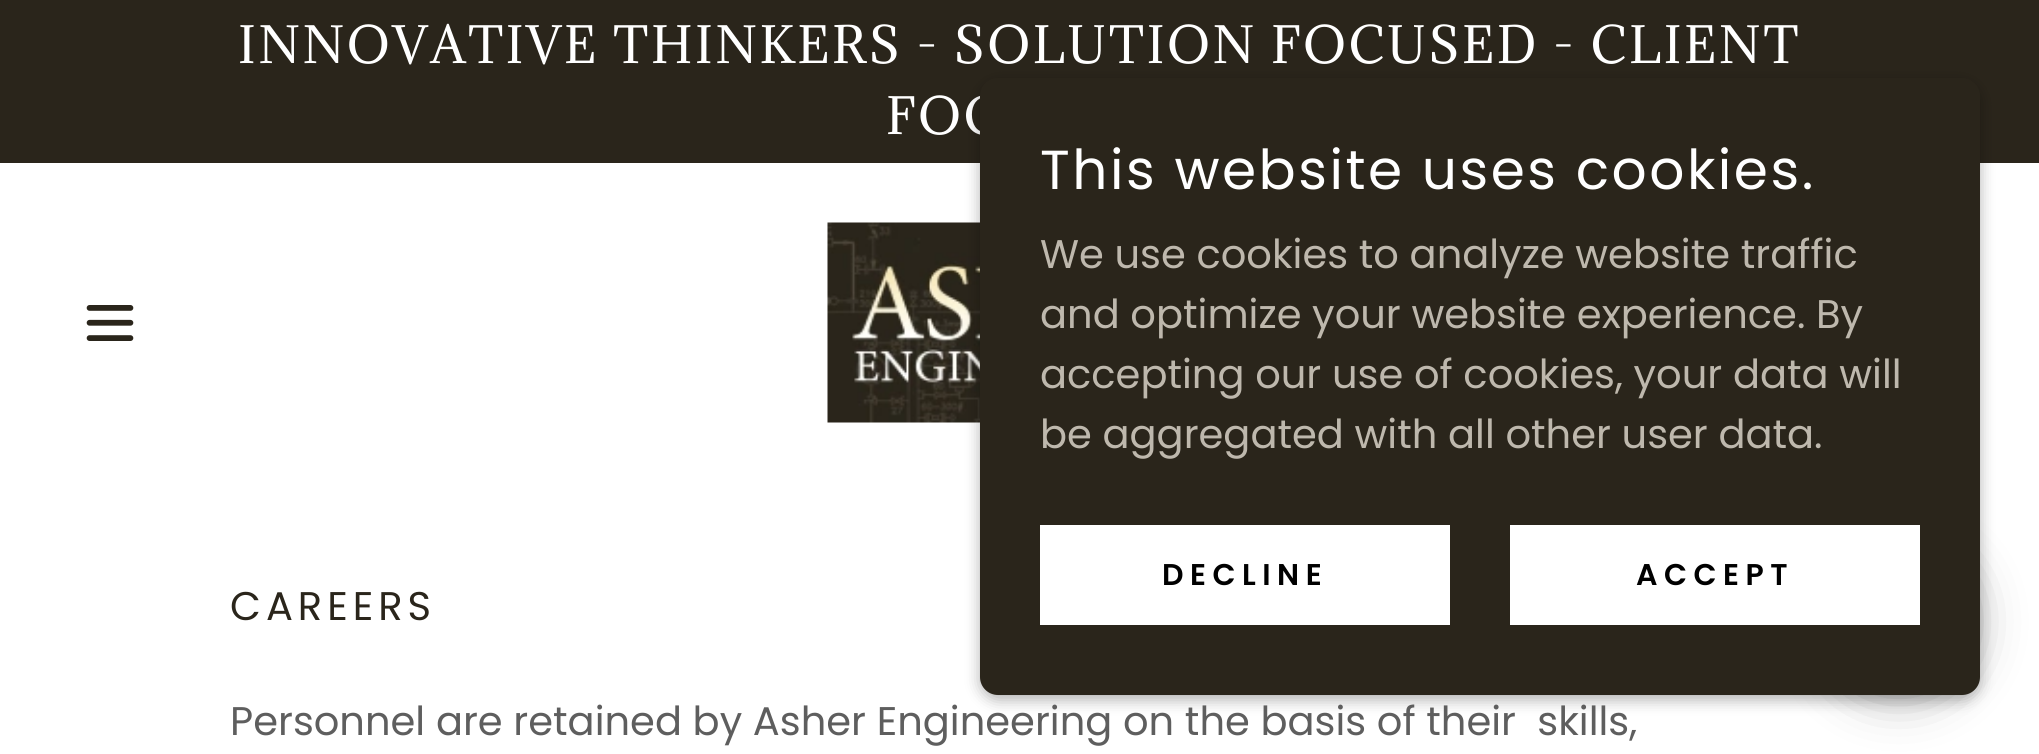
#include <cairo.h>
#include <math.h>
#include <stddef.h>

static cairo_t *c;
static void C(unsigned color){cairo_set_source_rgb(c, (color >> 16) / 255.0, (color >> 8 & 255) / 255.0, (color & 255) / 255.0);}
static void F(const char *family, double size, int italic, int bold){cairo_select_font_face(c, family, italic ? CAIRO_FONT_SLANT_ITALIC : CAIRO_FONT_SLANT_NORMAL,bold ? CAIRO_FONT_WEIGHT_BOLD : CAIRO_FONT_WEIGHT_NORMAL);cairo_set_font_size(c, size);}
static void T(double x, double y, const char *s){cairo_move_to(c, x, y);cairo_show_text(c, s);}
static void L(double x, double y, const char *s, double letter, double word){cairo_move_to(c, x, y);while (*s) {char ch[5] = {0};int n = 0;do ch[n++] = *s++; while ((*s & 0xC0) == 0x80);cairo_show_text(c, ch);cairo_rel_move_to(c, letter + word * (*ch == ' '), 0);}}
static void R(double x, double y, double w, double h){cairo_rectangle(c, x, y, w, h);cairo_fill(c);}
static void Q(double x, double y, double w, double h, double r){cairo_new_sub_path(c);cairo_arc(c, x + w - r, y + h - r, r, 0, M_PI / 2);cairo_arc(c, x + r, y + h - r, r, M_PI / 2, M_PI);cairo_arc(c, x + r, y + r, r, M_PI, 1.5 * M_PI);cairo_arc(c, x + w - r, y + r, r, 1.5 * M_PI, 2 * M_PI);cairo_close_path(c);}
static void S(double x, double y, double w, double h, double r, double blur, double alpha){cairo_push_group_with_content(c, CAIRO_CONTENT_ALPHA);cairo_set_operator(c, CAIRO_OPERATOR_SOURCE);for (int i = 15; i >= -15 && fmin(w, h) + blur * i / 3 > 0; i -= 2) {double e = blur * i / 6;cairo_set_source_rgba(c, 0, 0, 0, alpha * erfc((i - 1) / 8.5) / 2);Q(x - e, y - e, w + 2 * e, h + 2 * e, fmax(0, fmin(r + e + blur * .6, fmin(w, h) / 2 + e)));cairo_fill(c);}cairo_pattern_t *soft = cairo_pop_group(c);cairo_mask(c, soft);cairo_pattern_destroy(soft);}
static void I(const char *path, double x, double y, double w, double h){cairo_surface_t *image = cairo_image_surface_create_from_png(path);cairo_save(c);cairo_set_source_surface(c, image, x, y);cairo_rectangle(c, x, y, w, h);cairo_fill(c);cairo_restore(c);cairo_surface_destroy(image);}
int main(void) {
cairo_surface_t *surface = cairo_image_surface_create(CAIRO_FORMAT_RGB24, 2039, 754);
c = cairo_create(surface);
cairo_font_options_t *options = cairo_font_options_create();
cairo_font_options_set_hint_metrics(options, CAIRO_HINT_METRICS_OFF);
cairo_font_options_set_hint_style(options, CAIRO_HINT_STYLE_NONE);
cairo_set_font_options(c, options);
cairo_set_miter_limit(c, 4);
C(0xffffff);
cairo_paint(c);
C(0x2a251b);
R(0,0,2039,163);
F("Adamina",47.5,0,0);
C(0xffffff);
L(238,63,"INNOVATIVE THINKERS - SOLUTION FOCUSED - CLIENT",2.5,0);
L(886,134,"FOC",2.5,0);
I("1.png",86,305,48,36);
I("2.png",827,222,153,201);
C(0x000000);
S(980,83,1000,617,18,7.5,.3);
S(1818,540,162,163,81,22.5,.25);
C(0x2a251b);
Q(980,78,1000,617,18);
cairo_fill(c);
F("Poppins",55,0,0);
C(0xffffff);
L(1040,189,"This website uses cookies.",2.5,0);
F("Poppins",40,0,0);
C(0xbeb8ad);
T(1040,268,"We use cookies to analyze website traffic");
T(1040,328,"and optimize your website experience. By");
T(1040,388,"accepting our use of cookies, your data will");
T(1040,448,"be aggregated with all other user data.");
C(0xffffff);
R(1040,525,410,100);
F("Poppins SemiBold",30,0,0);
C(0x000000);
L(1162,585,"DECLINE",6.5,0);
C(0xffffff);
R(1510,525,410,100);
C(0x000000);
L(1636,585,"ACCEPT",6.5,0);
F("Poppins",40,0,0);
C(0x2a251b);
L(230,620,"CAREERS",5,0);
C(0x5e5e5e);
T(230,735,"Personnel are retained by Asher Engineering on the basis of their  skills,");
cairo_surface_write_to_png(surface, "o.png");
cairo_font_options_destroy(options);
cairo_destroy(c);
cairo_surface_destroy(surface);
return 0;
}
